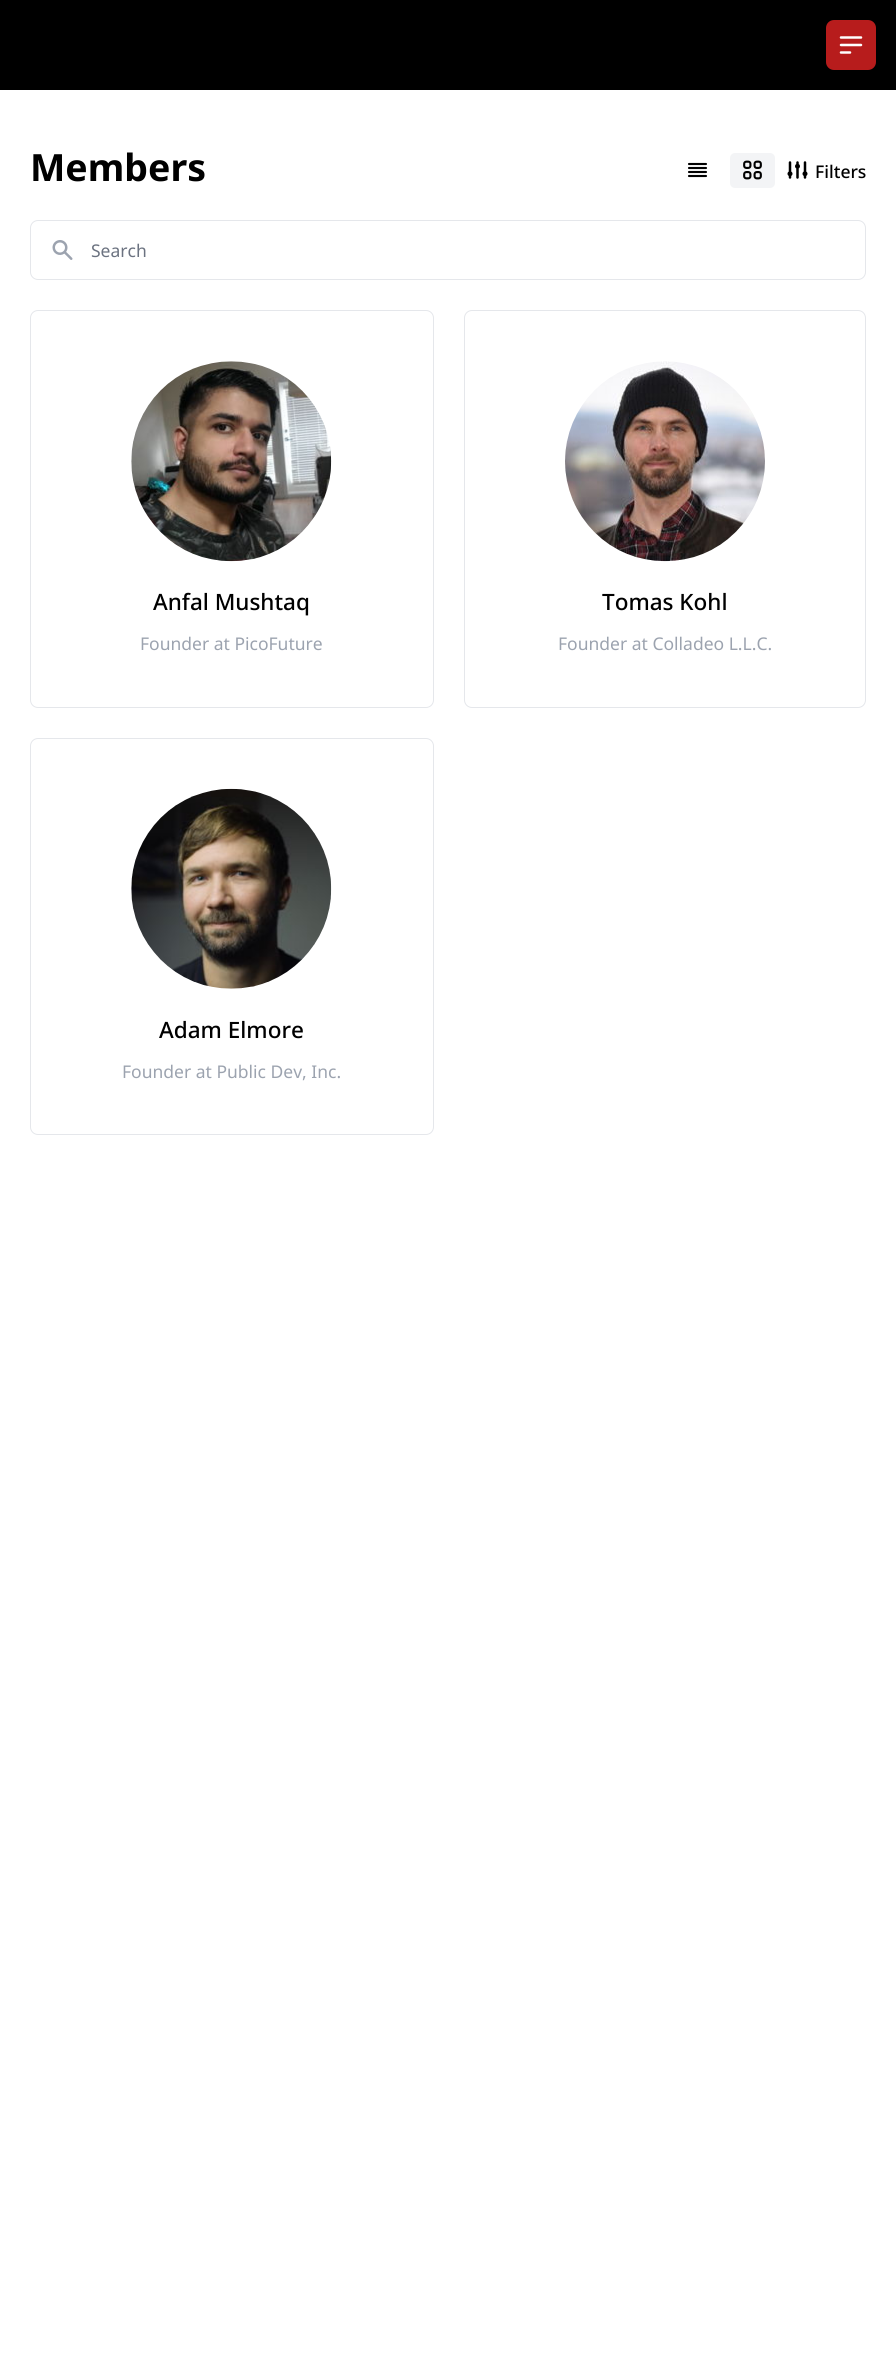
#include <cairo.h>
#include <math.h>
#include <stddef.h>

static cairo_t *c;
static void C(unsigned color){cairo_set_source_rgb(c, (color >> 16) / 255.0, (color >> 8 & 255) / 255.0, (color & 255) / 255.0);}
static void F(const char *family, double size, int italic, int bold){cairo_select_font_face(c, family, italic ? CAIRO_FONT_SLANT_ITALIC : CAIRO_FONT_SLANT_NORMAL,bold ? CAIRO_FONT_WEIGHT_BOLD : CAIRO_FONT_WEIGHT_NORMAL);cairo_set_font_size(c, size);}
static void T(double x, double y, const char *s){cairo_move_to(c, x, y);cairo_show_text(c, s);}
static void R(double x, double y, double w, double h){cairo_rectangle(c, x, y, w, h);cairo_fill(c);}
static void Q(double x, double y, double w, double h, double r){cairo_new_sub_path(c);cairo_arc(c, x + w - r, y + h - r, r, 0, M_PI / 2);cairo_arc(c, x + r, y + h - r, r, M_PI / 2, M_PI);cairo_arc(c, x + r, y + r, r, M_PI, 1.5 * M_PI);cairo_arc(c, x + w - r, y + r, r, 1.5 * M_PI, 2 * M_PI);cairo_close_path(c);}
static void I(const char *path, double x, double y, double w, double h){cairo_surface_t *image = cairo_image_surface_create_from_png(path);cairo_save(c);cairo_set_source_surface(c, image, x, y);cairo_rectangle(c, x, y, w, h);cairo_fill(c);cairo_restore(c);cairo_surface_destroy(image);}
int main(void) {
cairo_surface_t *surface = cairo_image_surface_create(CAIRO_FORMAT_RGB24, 896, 2377);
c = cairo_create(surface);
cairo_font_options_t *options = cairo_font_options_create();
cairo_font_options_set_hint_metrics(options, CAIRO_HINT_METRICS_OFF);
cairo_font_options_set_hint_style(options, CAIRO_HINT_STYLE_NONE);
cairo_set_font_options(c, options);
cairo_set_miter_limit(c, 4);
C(0xffffff);
cairo_paint(c);
C(0x000000);
R(0,0,896,90);
C(0xb71c1c);
Q(826,20,50,50,8);
cairo_fill(c);
cairo_new_path(c);
cairo_move_to(c,841,37.5);
cairo_line_to(c,861,37.5);
cairo_move_to(c,841,45);
cairo_line_to(c,861,45);
cairo_move_to(c,841,52.5);
cairo_line_to(c,850,52.5);
C(0xffffff);
cairo_set_line_width(c,2.5);
cairo_set_line_cap(c,CAIRO_LINE_CAP_ROUND);
cairo_set_line_join(c,CAIRO_LINE_JOIN_ROUND);
cairo_stroke(c);
F("Noto Sans",37.5,0,1);
C(0x000000);
T(30,181,"Members");
cairo_new_path(c);
cairo_move_to(c,689,164);
cairo_line_to(c,706,164);
cairo_move_to(c,689,168);
cairo_line_to(c,706,168);
cairo_move_to(c,689,172);
cairo_line_to(c,706,172);
cairo_move_to(c,689,176);
cairo_line_to(c,706,176);
cairo_set_line_width(c,2.1);
cairo_stroke(c);
C(0xf3f4f6);
Q(730,153,45,35,5);
cairo_fill(c);
I("1.png",743,160,19,20);
I("2.png",787,161,21,18);
F("Noto Sans Medium",17.5,0,0);
C(0x000000);
T(815,178,"Filters");
Q(30.5,220.5,835,59,7.5);
C(0xe5e7eb);
cairo_set_line_width(c,1);
cairo_set_line_cap(c,CAIRO_LINE_CAP_BUTT);
cairo_set_line_join(c,CAIRO_LINE_JOIN_MITER);
cairo_stroke(c);
I("3.png",52,240,21,20);
F("Noto Sans",17.5,0,0);
C(0x6b7280);
T(91,257,"Search");
Q(30.5,310.5,403,397,7.5);
C(0xe5e7eb);
cairo_stroke(c);
I("4.png",131,361,201,201);
F("Noto Sans Medium",22.5,0,0);
C(0x000000);
T(153,610,"Anfal Mushtaq");
F("Noto Sans",17.5,0,0);
C(0x9ca3af);
T(140,650,"Founder at PicoFuture");
Q(464.5,310.5,401,397,7.5);
C(0xe5e7eb);
cairo_stroke(c);
I("5.png",565,361,200,201);
F("Noto Sans Medium",22.5,0,0);
C(0x000000);
T(602,610,"Tomas Kohl");
F("Noto Sans",17.5,0,0);
C(0x9ca3af);
T(558,650,"Founder at Colladeo L.L.C.");
Q(30.5,738.5,403,396,7.5);
C(0xe5e7eb);
cairo_stroke(c);
I("6.png",131,788,201,201);
F("Noto Sans Medium",22.5,0,0);
C(0x000000);
T(159,1038,"Adam Elmore");
F("Noto Sans",17.5,0,0);
C(0x9ca3af);
T(122,1078,"Founder at Public Dev, Inc.");
cairo_surface_write_to_png(surface, "o.png");
cairo_font_options_destroy(options);
cairo_destroy(c);
cairo_surface_destroy(surface);
return 0;
}
